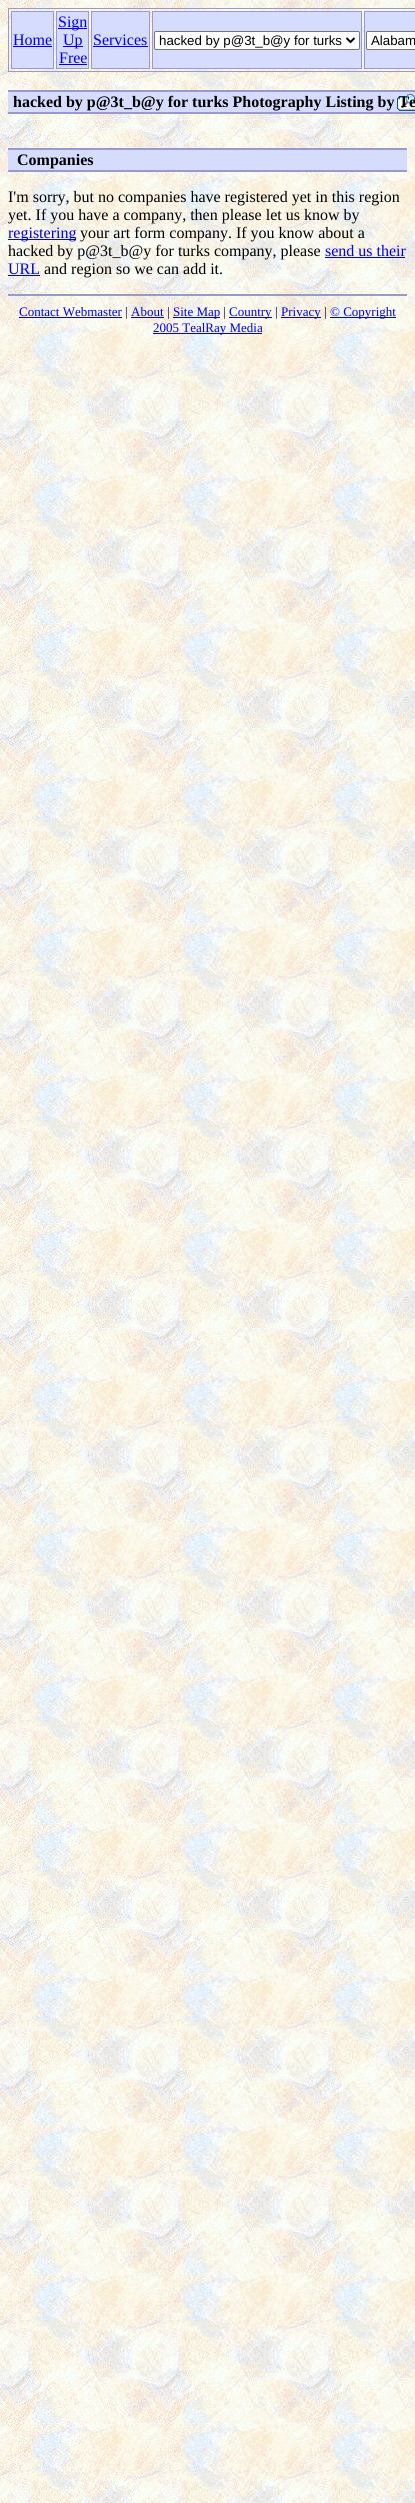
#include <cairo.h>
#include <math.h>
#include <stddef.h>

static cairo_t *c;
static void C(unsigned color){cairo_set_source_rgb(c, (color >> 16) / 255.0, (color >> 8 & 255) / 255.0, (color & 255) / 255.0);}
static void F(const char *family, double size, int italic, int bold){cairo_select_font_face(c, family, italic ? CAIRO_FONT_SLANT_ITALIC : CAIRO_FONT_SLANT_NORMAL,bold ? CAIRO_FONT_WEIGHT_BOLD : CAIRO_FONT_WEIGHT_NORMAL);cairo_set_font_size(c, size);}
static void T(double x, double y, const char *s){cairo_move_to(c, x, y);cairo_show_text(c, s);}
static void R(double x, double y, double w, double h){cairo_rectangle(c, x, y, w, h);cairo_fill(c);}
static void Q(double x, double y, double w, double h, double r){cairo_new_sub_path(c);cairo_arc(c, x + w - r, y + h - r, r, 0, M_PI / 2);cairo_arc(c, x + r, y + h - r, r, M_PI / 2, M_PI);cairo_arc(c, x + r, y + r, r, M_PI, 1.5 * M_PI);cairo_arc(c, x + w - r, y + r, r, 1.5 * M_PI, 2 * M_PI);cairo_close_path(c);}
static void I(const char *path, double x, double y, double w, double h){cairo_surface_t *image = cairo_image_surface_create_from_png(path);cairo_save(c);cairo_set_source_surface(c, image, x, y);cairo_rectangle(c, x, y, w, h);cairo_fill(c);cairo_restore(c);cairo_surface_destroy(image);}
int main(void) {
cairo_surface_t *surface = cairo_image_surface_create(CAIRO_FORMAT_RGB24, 415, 2503);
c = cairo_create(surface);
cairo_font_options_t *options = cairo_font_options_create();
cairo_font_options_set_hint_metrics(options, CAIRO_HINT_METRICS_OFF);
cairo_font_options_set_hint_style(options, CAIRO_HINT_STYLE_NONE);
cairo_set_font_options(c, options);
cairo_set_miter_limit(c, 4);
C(0xffffff);
cairo_paint(c);
I("1.png",0,0,415,2503);
cairo_rectangle(c,8.5,8.5,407,63);
C(0x9999cc);
cairo_set_line_width(c,1);
cairo_stroke(c);
C(0xd6dcfe);
cairo_rectangle(c,11.5,11.5,42,57);
cairo_fill_preserve(c);
C(0x9999cc);
cairo_stroke(c);
F("Liberation Serif",16,0,0);
C(0x0000ee);
T(13,45,"Home");
R(13,46,39,1);
C(0xd6dcfe);
cairo_rectangle(c,56.5,11.5,32,57);
cairo_fill_preserve(c);
C(0x9999cc);
cairo_stroke(c);
C(0x0000ee);
R(58,28,29,1);
T(58,27,"Sign");
R(63,46,20,1);
T(63,45,"Up");
T(59,63,"Free");
R(59,64,28,1);
C(0xd6dcfe);
cairo_rectangle(c,91.5,11.5,58,57);
cairo_fill_preserve(c);
C(0x9999cc);
cairo_stroke(c);
C(0x0000ee);
T(93,45,"Services");
R(93,46,55,1);
C(0xd6dcfe);
cairo_rectangle(c,152.5,11.5,209,57);
cairo_fill_preserve(c);
C(0x9999cc);
cairo_stroke(c);
C(0xffffff);
Q(154.5,31.5,205,18,1.5);
cairo_fill_preserve(c);
C(0x767676);
cairo_stroke(c);
cairo_new_path(c);
cairo_move_to(c,346.5,38);
cairo_line_to(c,350.5,42);
cairo_line_to(c,354.5,38);
C(0x000000);
cairo_set_line_width(c,2);
cairo_stroke(c);
F("Liberation Sans",13.3,0,0);
T(159,45,"hacked by p@3t_b@y for turks");
C(0xd6dcfe);
cairo_rectangle(c,364.5,11.5,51,57);
cairo_fill_preserve(c);
C(0x9999cc);
cairo_set_line_width(c,1);
cairo_stroke(c);
C(0xffffff);
Q(366.5,31.5,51,18,1.5);
cairo_fill_preserve(c);
C(0x767676);
cairo_stroke(c);
C(0x000000);
T(371,45,"Alabam");
C(0x9999cc);
R(8,90,407,2);
C(0xd6dcfe);
R(8,92,407,20);
I("2.png",397,94,18,17);
F("Liberation Serif",16,0,1);
C(0x000000);
T(13,107,"hacked by p@3t_b@y for turks Photography Listing by Te");
C(0x9999cc);
R(8,112,407,2);
R(8,148,399,2);
C(0xd6dcfe);
R(8,150,399,20);
C(0x000000);
T(17,165,"Companies");
C(0x9999cc);
R(8,170,399,2);
F("Liberation Serif",16,0,0);
C(0x000000);
T(8,202,"I'm sorry, but no companies have registered yet in this region");
T(8,220,"yet. If you have a company, then please let us know by");
C(0x0000ee);
R(8,239,68,1);
T(8,238,"registering");
C(0x000000);
T(80,238,"your art form company. If you know about a");
T(8,256,"hacked by p@3t_b@y for turks company, please");
C(0x0000ee);
T(325,256,"send us their");
R(325,257,80,1);
T(8,274,"URL");
R(8,275,32,1);
C(0x000000);
T(44,274,"and region so we can add it.");
C(0x9999cc);
R(8,294,399,2);
F("Liberation Serif",13,0,0);
C(0x0000ee);
T(19,316,"Contact Webmaster");
R(19,317,103,1);
C(0x000000);
T(125,316,"|");
C(0x0000ee);
T(131,316,"About");
R(131,317,33,1);
C(0x000000);
T(167,316,"|");
C(0x0000ee);
R(173,317,47,1);
T(173,316,"Site Map");
C(0x000000);
T(223,316,"|");
C(0x0000ee);
R(229,317,43,1);
T(229,316,"Country");
C(0x000000);
T(275,316,"|");
C(0x0000ee);
R(281,317,40,1);
T(281,316,"Privacy");
C(0x000000);
T(324,316,"|");
C(0x0000ee);
R(330,317,66,1);
T(330,316,"© Copyright");
R(153,333,109,1);
T(153,332,"2005 TealRay Media");
cairo_surface_write_to_png(surface, "o.png");
cairo_font_options_destroy(options);
cairo_destroy(c);
cairo_surface_destroy(surface);
return 0;
}
